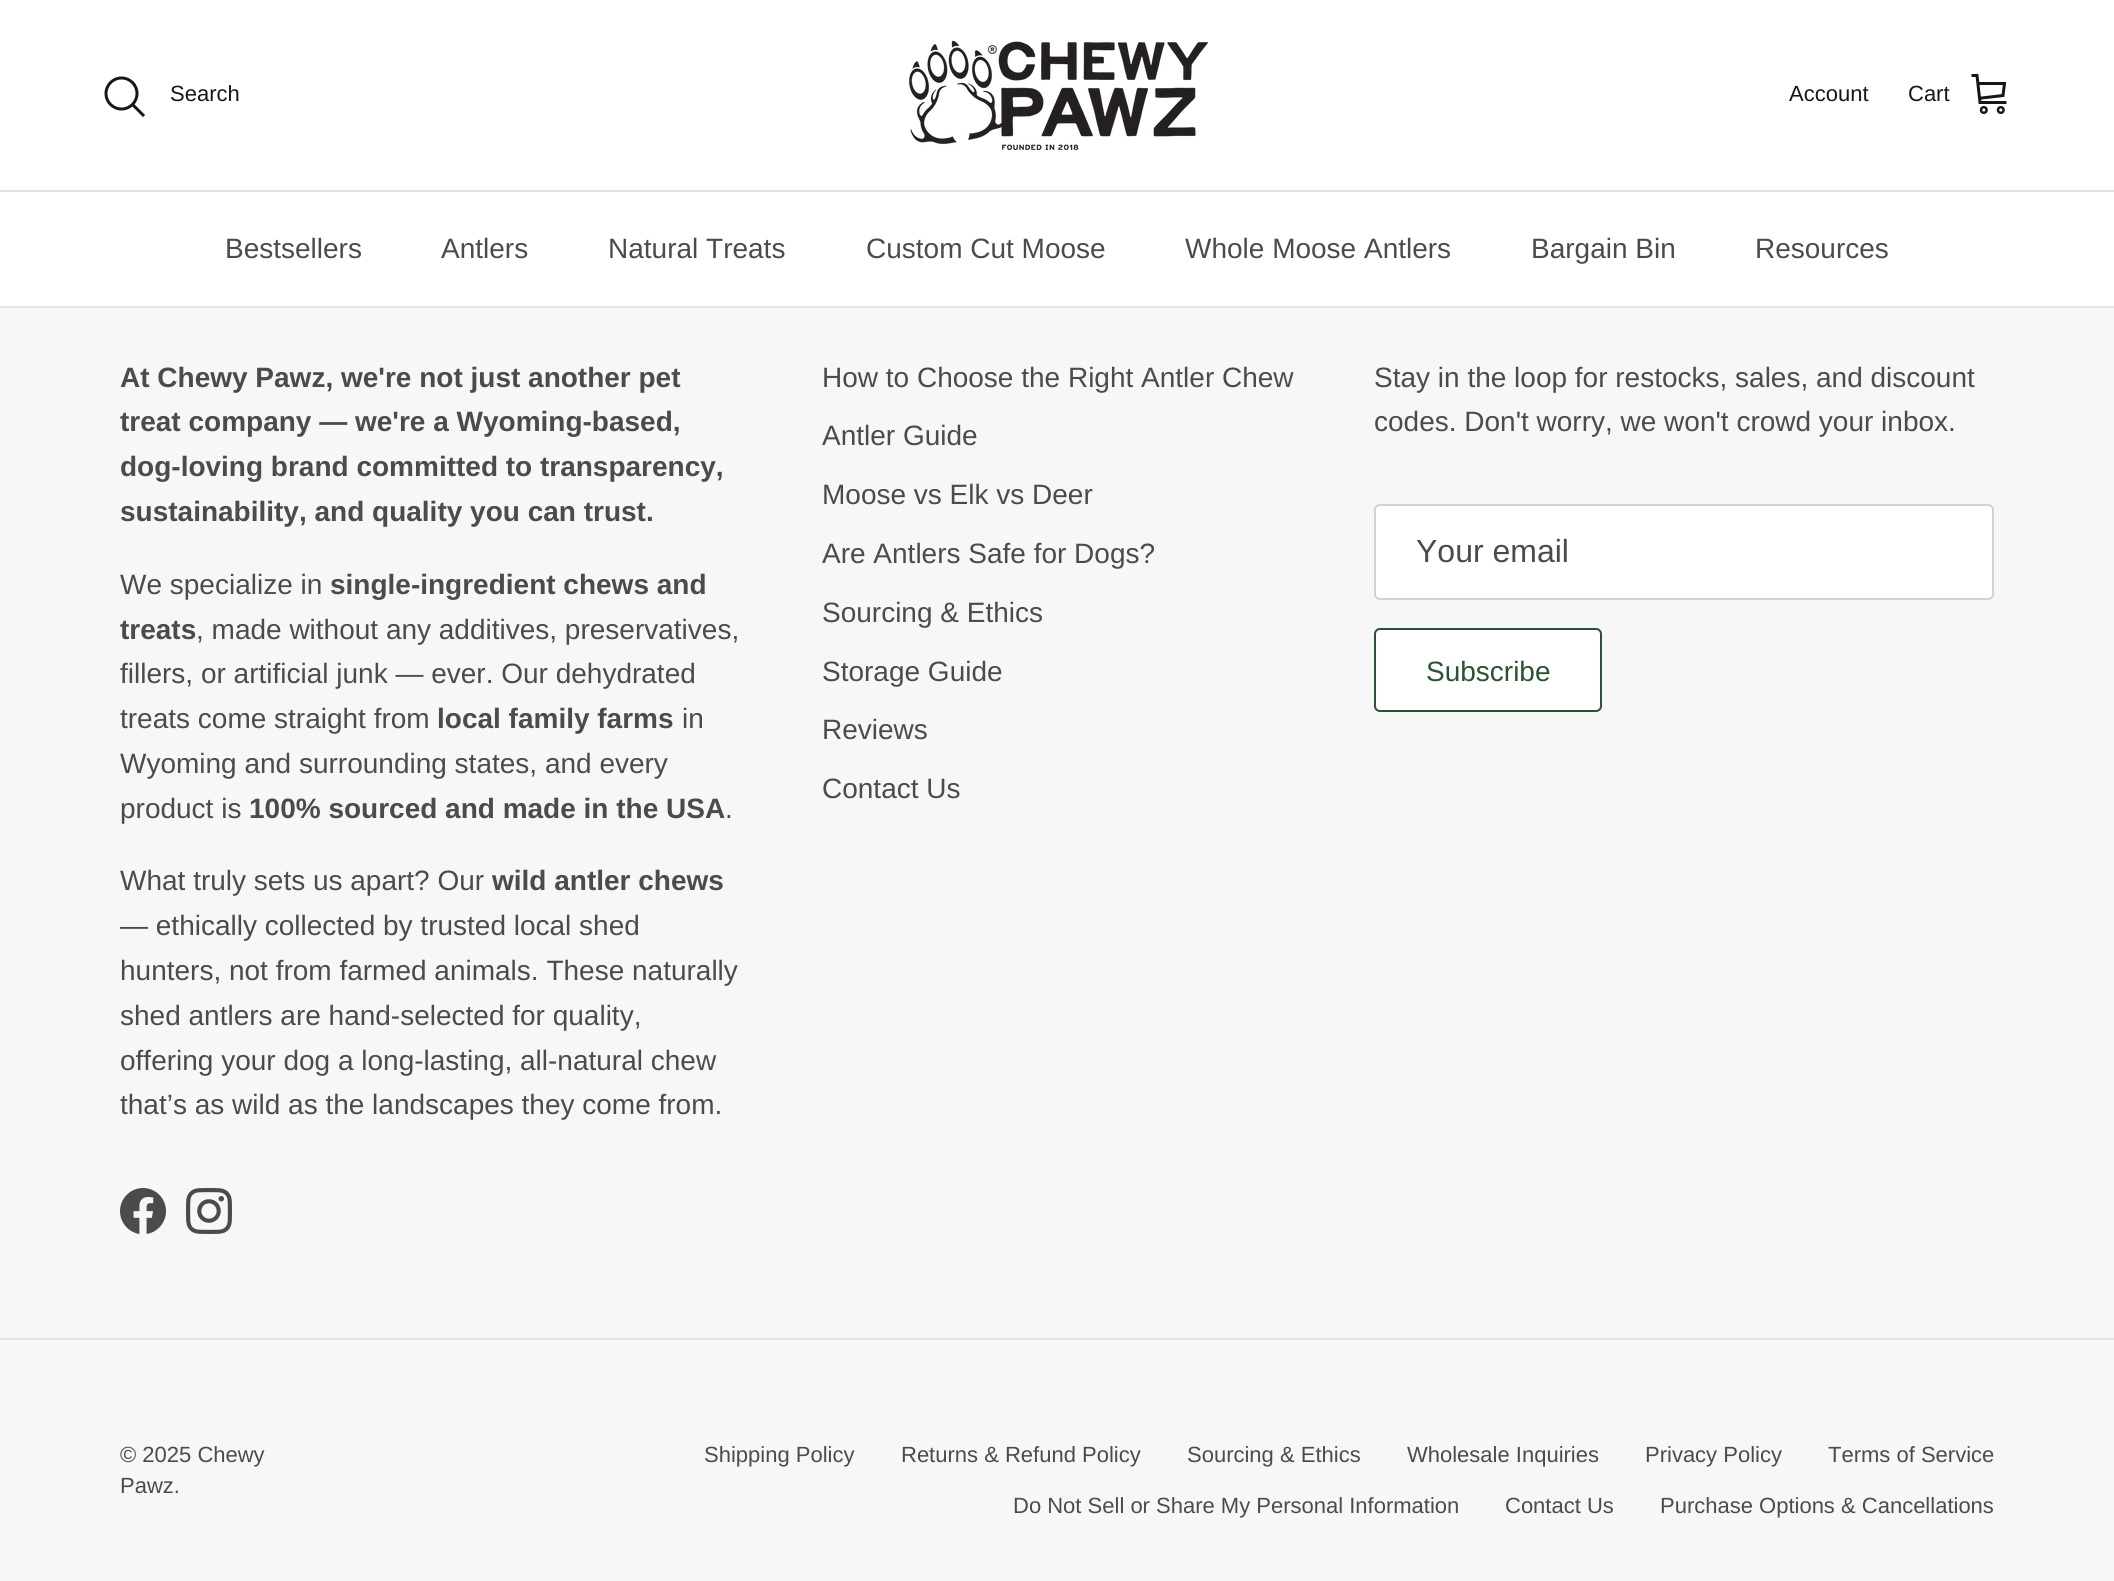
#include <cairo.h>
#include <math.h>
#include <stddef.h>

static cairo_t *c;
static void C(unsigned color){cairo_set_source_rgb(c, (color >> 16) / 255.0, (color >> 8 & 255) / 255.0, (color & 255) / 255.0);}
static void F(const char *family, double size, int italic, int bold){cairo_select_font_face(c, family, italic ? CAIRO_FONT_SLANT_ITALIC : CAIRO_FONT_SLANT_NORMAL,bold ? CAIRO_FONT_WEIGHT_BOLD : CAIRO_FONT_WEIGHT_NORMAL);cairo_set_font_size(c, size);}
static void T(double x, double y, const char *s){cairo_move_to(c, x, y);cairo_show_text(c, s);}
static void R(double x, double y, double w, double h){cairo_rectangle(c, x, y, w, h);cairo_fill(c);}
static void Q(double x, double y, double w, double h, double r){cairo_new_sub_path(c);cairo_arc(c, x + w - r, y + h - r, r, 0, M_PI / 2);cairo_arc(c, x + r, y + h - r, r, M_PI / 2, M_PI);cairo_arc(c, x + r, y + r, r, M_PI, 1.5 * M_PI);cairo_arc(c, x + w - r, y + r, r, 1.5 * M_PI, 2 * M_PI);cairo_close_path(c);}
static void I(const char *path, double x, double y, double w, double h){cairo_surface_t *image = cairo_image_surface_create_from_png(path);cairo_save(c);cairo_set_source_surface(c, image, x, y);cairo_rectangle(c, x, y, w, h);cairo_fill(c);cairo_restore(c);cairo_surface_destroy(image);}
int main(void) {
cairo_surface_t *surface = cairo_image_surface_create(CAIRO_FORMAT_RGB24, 2114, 1581);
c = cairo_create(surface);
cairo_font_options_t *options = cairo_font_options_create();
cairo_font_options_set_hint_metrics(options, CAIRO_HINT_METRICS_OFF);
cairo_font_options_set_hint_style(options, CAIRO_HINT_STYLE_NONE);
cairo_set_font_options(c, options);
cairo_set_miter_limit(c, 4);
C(0xf7f7f8);
cairo_paint(c);
C(0xffffff);
R(0,0,2114,190);
C(0xe2e2e2);
R(0,190,2114,2);
cairo_arc(c,121.5,93.5,15.5,0,2 * M_PI);
C(0x171717);
cairo_set_line_width(c,3);
cairo_stroke(c);
F("Liberation Sans",22,0,0);
T(170,101,"Search");
cairo_new_path(c);
cairo_move_to(c,134,106);
cairo_line_to(c,143,115);
cairo_set_line_cap(c,CAIRO_LINE_CAP_SQUARE);
cairo_stroke(c);
I("1.png",909,40,299,110);
T(1789,101,"Account");
T(1908,101,"Cart");
cairo_new_path(c);
cairo_move_to(c,1973,75.5);
cairo_line_to(c,1977,75.5);
cairo_line_to(c,1980,102.5);
cairo_line_to(c,2005,102.5);
cairo_move_to(c,1978.5,83.5);
cairo_line_to(c,2004.5,83.5);
cairo_line_to(c,2003,95.5);
cairo_line_to(c,1981.5,98);
cairo_stroke(c);
cairo_arc(c,1983.8,110,2.8,0,2 * M_PI);
cairo_set_line_width(c,2.5);
cairo_set_line_cap(c,CAIRO_LINE_CAP_BUTT);
cairo_stroke(c);
cairo_arc(c,2000.8,110,2.8,0,2 * M_PI);
cairo_stroke(c);
C(0xe2e2e2);
R(0,306,2114,2);
C(0xffffff);
R(0,192,2114,114);
F("Liberation Sans",28,0,0);
C(0x4a4b4c);
T(225,258,"Bestsellers");
T(441,258,"Antlers");
T(608,258,"Natural Treats");
T(866,258,"Custom Cut Moose");
T(1185,258,"Whole Moose Antlers");
T(1531,258,"Bargain Bin");
T(1755,258,"Resources");
F("Liberation Sans",28,0,1);
T(120,387,"At Chewy Pawz, we're not just another pet");
T(120,431,"treat company — we're a Wyoming-based,");
T(120,476,"dog-loving brand committed to transparency,");
T(120,521,"sustainability, and quality you can trust.");
F("Liberation Sans",28,0,0);
T(120,594,"We specialize in");
F("Liberation Sans",28,0,1);
T(330,594,"single-ingredient chews and");
T(120,639,"treats");
F("Liberation Sans",28,0,0);
T(196,639,", made without any additives, preservatives,");
T(120,683,"fillers, or artificial junk — ever. Our dehydrated");
T(120,728,"treats come straight from");
F("Liberation Sans",28,0,1);
T(437,728,"local family farms");
F("Liberation Sans",28,0,0);
T(682,728,"in");
T(120,773,"Wyoming and surrounding states, and every");
T(120,818,"product is");
F("Liberation Sans",28,0,1);
T(249,818,"100% sourced and made in the USA");
F("Liberation Sans",28,0,0);
T(725,818,".");
T(120,890,"What truly sets us apart? Our");
F("Liberation Sans",28,0,1);
T(492,890,"wild antler chews");
F("Liberation Sans",28,0,0);
T(120,935,"— ethically collected by trusted local shed");
T(120,980,"hunters, not from farmed animals. These naturally");
T(120,1025,"shed antlers are hand-selected for quality,");
T(120,1070,"offering your dog a long-lasting, all-natural chew");
T(120,1114,"that’s as wild as the landscapes they come from.");
I("2.png",120,1188,46,46);
I("3.png",186,1188,46,46);
T(822,387,"How to Choose the Right Antler Chew");
T(822,445,"Antler Guide");
T(822,504,"Moose vs Elk vs Deer");
T(822,563,"Are Antlers Safe for Dogs?");
T(822,622,"Sourcing & Ethics");
T(822,681,"Storage Guide");
T(822,739,"Reviews");
T(822,798,"Contact Us");
T(1374,387,"Stay in the loop for restocks, sales, and discount");
T(1374,431,"codes. Don't worry, we won't crowd your inbox.");
C(0xffffff);
Q(1375,505,618,94,5);
cairo_fill_preserve(c);
C(0xd2d2d2);
cairo_set_line_width(c,2);
cairo_stroke(c);
F("Liberation Sans",32,0,0);
C(0x4a4b4c);
T(1416,562,"Your email");
C(0xffffff);
Q(1375,629,226,82,5);
cairo_fill_preserve(c);
C(0x2c5234);
cairo_stroke(c);
F("Liberation Sans",28,0,0);
T(1426,681,"Subscribe");
C(0xe4e4e4);
R(0,1338,2114,2);
F("Liberation Sans",22,0,0);
C(0x4a4b4c);
T(120,1462,"© 2025 Chewy");
T(120,1493,"Pawz.");
T(704,1462,"Shipping Policy");
T(901,1462,"Returns & Refund Policy");
T(1187,1462,"Sourcing & Ethics");
T(1407,1462,"Wholesale Inquiries");
T(1645,1462,"Privacy Policy");
T(1828,1462,"Terms of Service");
T(1013,1513,"Do Not Sell or Share My Personal Information");
T(1505,1513,"Contact Us");
T(1660,1513,"Purchase Options & Cancellations");
cairo_surface_write_to_png(surface, "o.png");
cairo_font_options_destroy(options);
cairo_destroy(c);
cairo_surface_destroy(surface);
return 0;
}
